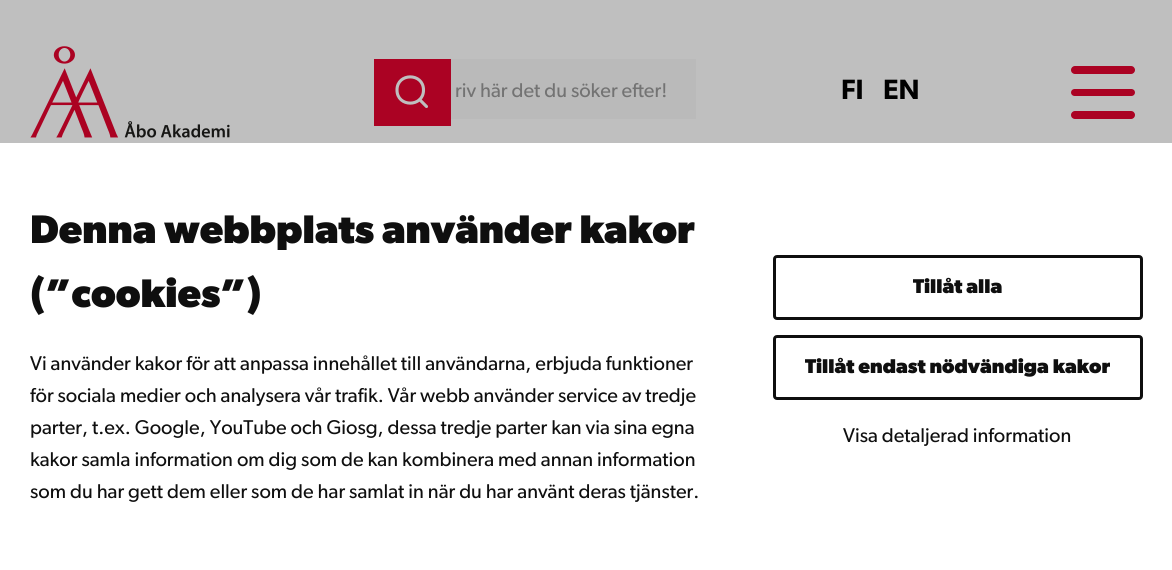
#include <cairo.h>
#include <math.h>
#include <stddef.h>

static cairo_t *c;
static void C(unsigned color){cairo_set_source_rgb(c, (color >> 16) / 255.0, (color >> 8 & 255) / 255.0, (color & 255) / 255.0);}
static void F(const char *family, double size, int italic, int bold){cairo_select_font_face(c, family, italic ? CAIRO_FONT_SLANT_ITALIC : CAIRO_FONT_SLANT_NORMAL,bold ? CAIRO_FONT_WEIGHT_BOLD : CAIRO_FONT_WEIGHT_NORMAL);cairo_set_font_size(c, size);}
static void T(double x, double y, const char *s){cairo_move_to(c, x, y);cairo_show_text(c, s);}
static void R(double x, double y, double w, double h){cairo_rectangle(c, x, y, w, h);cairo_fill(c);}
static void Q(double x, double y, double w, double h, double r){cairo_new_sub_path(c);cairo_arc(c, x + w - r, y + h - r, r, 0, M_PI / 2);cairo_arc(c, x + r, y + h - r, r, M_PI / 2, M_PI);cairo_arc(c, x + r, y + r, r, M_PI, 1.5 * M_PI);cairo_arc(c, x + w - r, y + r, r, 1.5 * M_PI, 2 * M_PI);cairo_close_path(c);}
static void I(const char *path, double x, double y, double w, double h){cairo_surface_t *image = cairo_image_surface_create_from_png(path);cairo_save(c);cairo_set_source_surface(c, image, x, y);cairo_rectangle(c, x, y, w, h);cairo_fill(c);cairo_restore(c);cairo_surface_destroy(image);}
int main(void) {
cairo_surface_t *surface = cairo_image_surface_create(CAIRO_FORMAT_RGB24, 1172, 570);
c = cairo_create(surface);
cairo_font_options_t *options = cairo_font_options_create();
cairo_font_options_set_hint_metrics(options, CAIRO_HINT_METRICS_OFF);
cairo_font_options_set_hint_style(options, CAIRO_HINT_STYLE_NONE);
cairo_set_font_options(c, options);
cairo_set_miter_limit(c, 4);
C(0xbfbfbf);
cairo_paint(c);
I("1.png",30,46,200,92);
C(0xab0223);
R(374,59,77,67);
cairo_new_path(c);
cairo_move_to(c,426.5,106.5);
cairo_line_to(c,419.5,99.5);
cairo_close_path(c);
cairo_move_to(c,423.5,90);
cairo_curve_to(c,423.5,107.5,397,107.5,397,90);
cairo_curve_to(c,397,72.5,423.5,72.5,423.5,90);
cairo_close_path(c);
C(0xbfbfbf);
cairo_set_line_width(c,3.1);
cairo_set_line_cap(c,CAIRO_LINE_CAP_ROUND);
cairo_set_line_join(c,CAIRO_LINE_JOIN_ROUND);
cairo_stroke(c);
C(0xbababa);
R(451,59,245,60);
F("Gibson",20,0,0);
C(0x737373);
T(455,97,"riv här det du söker efter!");
F("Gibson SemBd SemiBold",28,0,0);
C(0x000000);
T(841,99,"FI");
T(883,99,"EN");
C(0xab0223);
Q(1071,66,64,8,4);
cairo_fill(c);
Q(1071,89,64,7,3.5);
cairo_fill(c);
Q(1071,111,64,8,4);
cairo_fill(c);
C(0xffffff);
R(0,143,1172,427);
F("Gibson",40,0,1);
C(0x0f0f0f);
T(30,243,"Denna webbplats använder kakor");
T(30,307,"(”cookies”)");
F("Gibson",20,0,0);
T(30,370,"Vi använder kakor för att anpassa innehållet till användarna, erbjuda funktioner");
T(30,402,"för sociala medier och analysera vår trafik. Vår webb använder service av tredje");
T(30,434,"parter, t.ex. Google, YouTube och Giosg, dessa tredje parter kan via sina egna");
T(30,466,"kakor samla information om dig som de kan kombinera med annan information");
T(30,498,"som du har gett dem eller som de har samlat in när du har använt deras tjänster.");
Q(774.5,256.5,367,62,2.5);
cairo_set_line_width(c,3);
cairo_set_line_cap(c,CAIRO_LINE_CAP_BUTT);
cairo_set_line_join(c,CAIRO_LINE_JOIN_MITER);
cairo_stroke(c);
F("Gibson",20,0,1);
T(913,293,"Tillåt alla");
Q(774.5,336.5,367,62,2.5);
cairo_stroke(c);
T(805,373,"Tillåt endast nödvändiga kakor");
F("Gibson",20,0,0);
T(843,442,"Visa detaljerad information");
cairo_surface_write_to_png(surface, "o.png");
cairo_font_options_destroy(options);
cairo_destroy(c);
cairo_surface_destroy(surface);
return 0;
}
